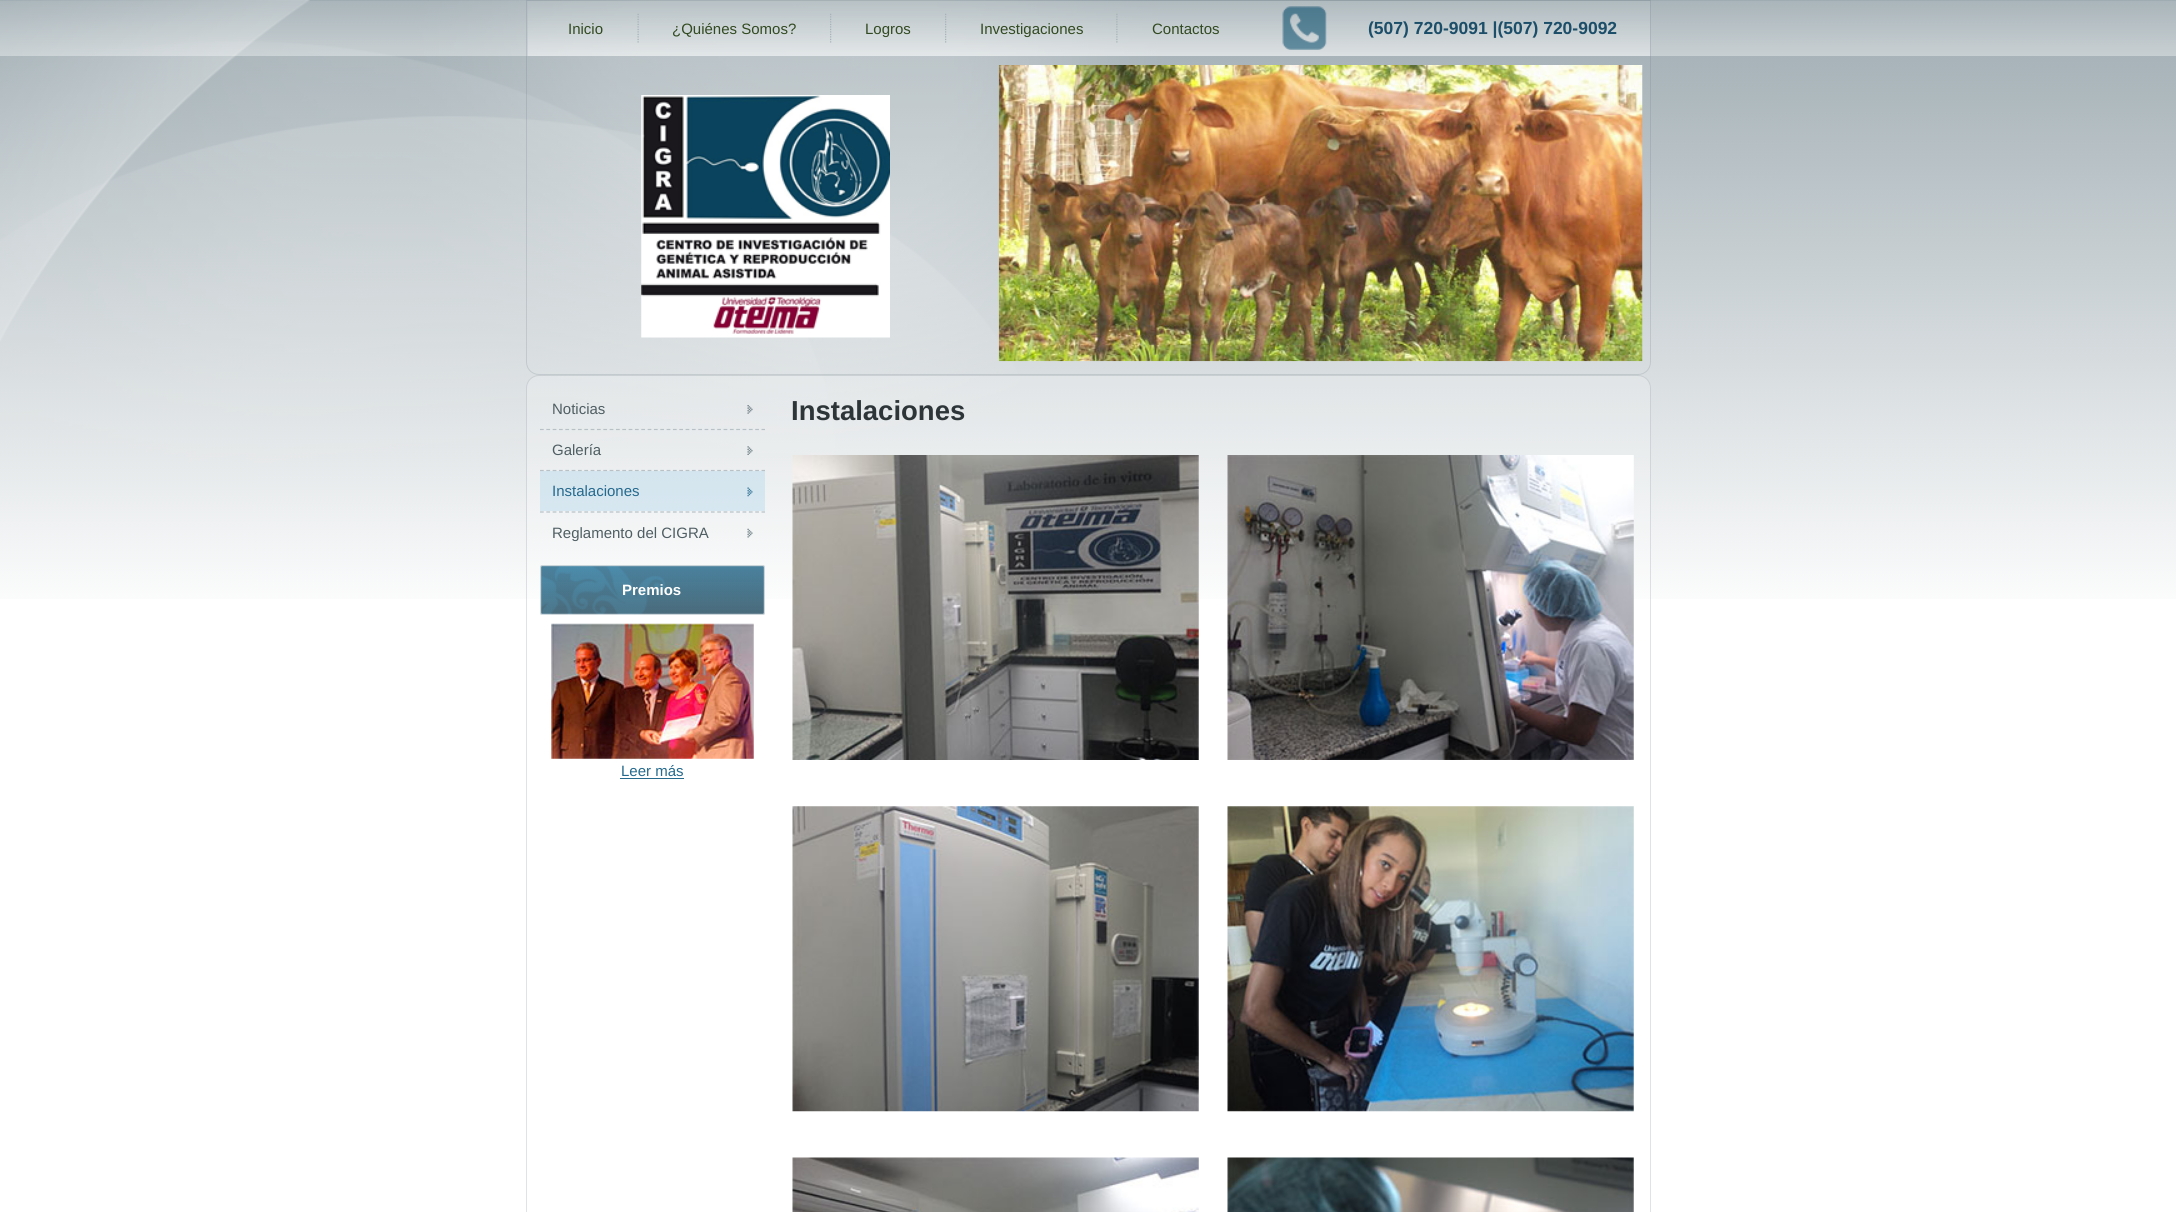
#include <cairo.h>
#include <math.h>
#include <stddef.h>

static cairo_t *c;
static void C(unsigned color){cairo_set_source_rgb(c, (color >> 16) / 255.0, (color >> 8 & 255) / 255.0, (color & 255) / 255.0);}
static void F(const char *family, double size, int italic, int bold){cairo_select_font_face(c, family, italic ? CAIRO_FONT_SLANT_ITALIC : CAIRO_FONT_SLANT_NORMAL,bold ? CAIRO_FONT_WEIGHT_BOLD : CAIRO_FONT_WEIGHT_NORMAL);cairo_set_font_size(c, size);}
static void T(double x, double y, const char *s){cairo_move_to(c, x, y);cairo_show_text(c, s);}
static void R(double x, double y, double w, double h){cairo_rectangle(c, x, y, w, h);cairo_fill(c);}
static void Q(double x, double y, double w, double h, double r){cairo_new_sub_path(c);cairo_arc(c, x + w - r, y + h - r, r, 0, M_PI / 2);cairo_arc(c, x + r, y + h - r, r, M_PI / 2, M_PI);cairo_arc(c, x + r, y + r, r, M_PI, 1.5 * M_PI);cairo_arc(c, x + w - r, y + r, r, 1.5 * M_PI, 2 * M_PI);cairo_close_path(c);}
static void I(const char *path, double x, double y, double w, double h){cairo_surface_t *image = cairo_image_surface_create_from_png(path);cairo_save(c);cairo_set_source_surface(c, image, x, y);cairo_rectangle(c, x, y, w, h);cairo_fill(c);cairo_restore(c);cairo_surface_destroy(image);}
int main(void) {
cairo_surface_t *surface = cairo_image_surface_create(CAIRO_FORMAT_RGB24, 2176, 1212);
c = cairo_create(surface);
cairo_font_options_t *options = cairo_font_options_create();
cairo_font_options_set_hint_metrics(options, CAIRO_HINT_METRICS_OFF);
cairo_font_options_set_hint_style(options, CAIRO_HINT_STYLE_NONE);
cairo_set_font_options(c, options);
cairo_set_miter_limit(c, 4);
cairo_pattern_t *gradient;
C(0xffffff);
cairo_paint(c);
I("1.png",0,0,2176,599);
I("2.png",1282,6,45,44);
cairo_new_path(c);
cairo_move_to(c,526.5,.5);
cairo_line_to(c,1650.5,.5);
cairo_line_to(c,1650.5,362);
cairo_curve_to(c,1650.5,369,1645,374.5,1638,374.5);
cairo_line_to(c,539,374.5);
cairo_curve_to(c,532,374.5,526.5,369,526.5,362);
cairo_close_path(c);
cairo_set_source_rgba(c,0.392,0.463,0.49,0.2);
cairo_set_line_width(c,1);
cairo_stroke(c);
gradient = cairo_pattern_create_linear(1089,1.2,1089,56);
cairo_pattern_add_color_stop_rgba(gradient,0,0.722,0.761,0.776,.4);
cairo_pattern_add_color_stop_rgba(gradient,1,0.976,0.98,0.98,.4);
cairo_set_source(c,gradient);
cairo_pattern_destroy(gradient);
R(528,1,1122,55);
F("Liberation Sans",15,0,0);
C(0x324a21);
T(568,34,"Inicio");
I("3.png",637,13,2,30);
T(672,34,"¿Quiénes Somos?");
I("4.png",830,13,2,30);
T(865,34,"Logros");
I("5.png",945,13,2,30);
T(980,34,"Investigaciones");
I("6.png",1116,13,2,30);
T(1152,34,"Contactos");
F("Liberation Sans",17.5,0,1);
C(0x1c4e69);
T(1368,34,"(507) 720-9091 |(507) 720-9092");
I("7.png",641,95,249,243);
I("8.png",998,65,645,297);
cairo_set_source_rgba(c,1,1,1,0.2);
Q(526,375,1125,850,13);
cairo_fill(c);
Q(526.5,375.5,1124,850,12.5);
cairo_set_source_rgba(c,0.392,0.463,0.49,0.2);
cairo_stroke(c);
F("Liberation Sans",15,0,0);
C(0x4f5e63);
T(552,414,"Noticias");
I("9.png",747,405,6,9);
cairo_new_path(c);
cairo_move_to(c,540,429.5);
cairo_line_to(c,765,429.5);
C(0xb8c2c6);
cairo_set_line_width(c,1.2);
cairo_set_dash(c,(double[]){3.75,2.58},2,0);
cairo_stroke(c);
C(0x4f5e63);
T(552,455,"Galería");
I("10.png",747,446,6,9);
cairo_set_source_rgba(c,0.749,0.867,0.933,0.5);
R(540,471,225,40);
cairo_new_path(c);
cairo_move_to(c,540,470.5);
cairo_line_to(c,765,470.5);
C(0xb8c2c6);
cairo_stroke(c);
C(0x25698d);
T(552,496,"Instalaciones");
I("11.png",747,487,6,10);
cairo_new_path(c);
cairo_move_to(c,540,512);
cairo_line_to(c,765,512);
C(0xb8c2c6);
cairo_stroke(c);
C(0x4f5e63);
T(552,538,"Reglamento del CIGRA");
I("12.png",747,528,6,10);
I("13.png",540,565,225,50);
Q(540.5,565.5,224,49,2);
cairo_set_source_rgba(c,0.855,0.875,0.882,0.6);
cairo_set_line_width(c,1);
cairo_set_dash(c,NULL,0,0);
cairo_stroke(c);
F("Liberation Sans",15,0,1);
C(0xffffff);
T(622,595,"Premios");
I("14.png",551,623,203,136);
F("Liberation Sans",15,0,0);
C(0x25698d);
T(621,776,"Leer más");
R(620,778,64,1);
F("Liberation Sans",27.5,0,1);
C(0x2d3539);
T(791,420,"Instalaciones");
I("15.png",792,455,407,305);
I("16.png",1227,455,407,305);
I("17.png",792,806,407,306);
I("18.png",1227,806,407,306);
I("19.png",792,1157,407,55);
I("20.png",1227,1157,407,55);
cairo_surface_write_to_png(surface, "o.png");
cairo_font_options_destroy(options);
cairo_destroy(c);
cairo_surface_destroy(surface);
return 0;
}
